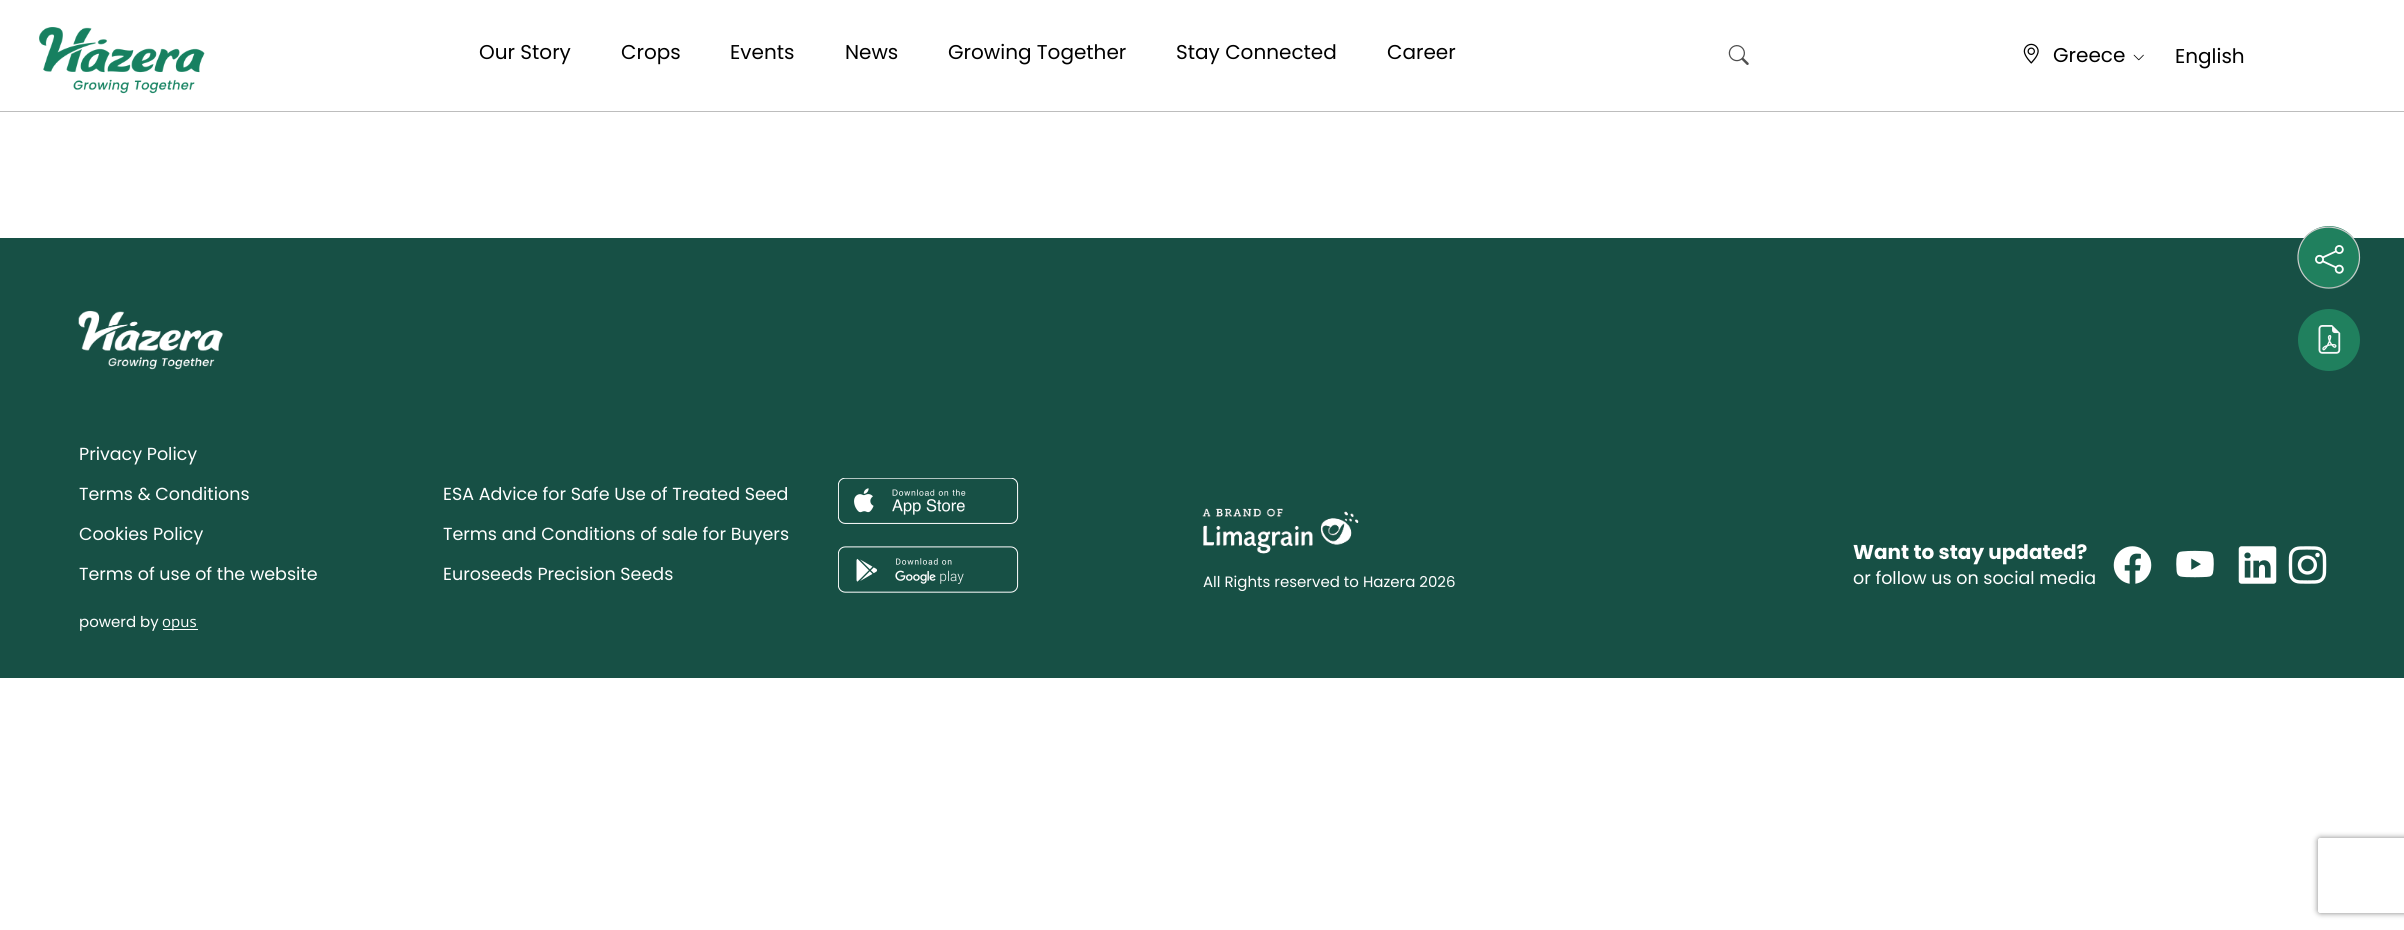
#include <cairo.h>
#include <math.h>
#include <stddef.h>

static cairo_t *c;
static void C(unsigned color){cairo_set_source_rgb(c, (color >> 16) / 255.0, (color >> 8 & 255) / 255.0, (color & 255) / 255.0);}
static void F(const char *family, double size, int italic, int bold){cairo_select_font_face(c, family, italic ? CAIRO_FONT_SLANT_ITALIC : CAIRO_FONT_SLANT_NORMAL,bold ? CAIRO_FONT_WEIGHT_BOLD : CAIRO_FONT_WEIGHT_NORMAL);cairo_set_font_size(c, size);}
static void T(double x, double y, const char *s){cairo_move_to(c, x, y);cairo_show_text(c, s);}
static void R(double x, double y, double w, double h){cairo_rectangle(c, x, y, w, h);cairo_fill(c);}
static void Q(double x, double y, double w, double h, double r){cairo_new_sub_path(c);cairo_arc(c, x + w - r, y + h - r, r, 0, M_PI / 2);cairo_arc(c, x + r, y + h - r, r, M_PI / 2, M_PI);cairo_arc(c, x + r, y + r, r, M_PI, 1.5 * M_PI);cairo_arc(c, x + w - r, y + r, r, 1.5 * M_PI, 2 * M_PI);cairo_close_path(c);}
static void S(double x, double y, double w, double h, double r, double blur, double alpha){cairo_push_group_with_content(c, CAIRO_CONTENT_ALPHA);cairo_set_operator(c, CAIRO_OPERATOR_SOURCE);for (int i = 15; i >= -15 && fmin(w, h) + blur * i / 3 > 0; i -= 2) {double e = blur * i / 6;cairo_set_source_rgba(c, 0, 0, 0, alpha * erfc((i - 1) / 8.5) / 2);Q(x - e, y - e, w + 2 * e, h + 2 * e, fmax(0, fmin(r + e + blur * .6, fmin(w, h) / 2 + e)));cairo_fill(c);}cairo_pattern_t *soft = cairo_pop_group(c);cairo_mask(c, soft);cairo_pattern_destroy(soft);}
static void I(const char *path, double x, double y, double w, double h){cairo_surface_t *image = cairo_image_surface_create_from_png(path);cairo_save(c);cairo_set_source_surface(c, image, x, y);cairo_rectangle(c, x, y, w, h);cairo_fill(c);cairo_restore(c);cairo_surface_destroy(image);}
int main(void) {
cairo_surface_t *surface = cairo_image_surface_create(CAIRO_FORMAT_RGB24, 2404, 930);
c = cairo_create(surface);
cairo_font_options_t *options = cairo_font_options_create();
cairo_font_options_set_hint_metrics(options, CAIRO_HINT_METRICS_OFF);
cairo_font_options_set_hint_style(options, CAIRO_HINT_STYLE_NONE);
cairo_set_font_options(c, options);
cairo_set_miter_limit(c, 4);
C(0xffffff);
cairo_paint(c);
C(0xbdbdbd);
R(0,111,2404,1);
I("1.png",39,27,166,67);
F("Poppins",20,0,0);
C(0x000000);
T(479,59,"Our Story");
T(621,59,"Crops");
T(730,59,"Events");
T(845,59,"News");
T(948,59,"Growing Together");
T(1176,59,"Stay Connected");
T(1387,59,"Career");
I("2.png",1728,45,21,20);
I("3.png",2023,43,16,21);
T(2053,62,"Greece");
I("4.png",2133,54,11,7);
T(2175,63,"English");
C(0x175045);
R(0,238,2404,440);
C(0x20805e);
Q(2298,226,62,63,31);
cairo_fill(c);
cairo_new_path(c);
cairo_move_to(c,2350.5,279);
cairo_curve_to(c,2338.5,291,2319,291,2307,279);
C(0xbbbbbb);
cairo_set_line_width(c,1.2);
cairo_stroke(c);
cairo_new_path(c);
cairo_move_to(c,2307,279);
cairo_curve_to(c,2300,272,2296.5,261.5,2298.5,251.5);
cairo_curve_to(c,2306,215.5,2359.5,221,2359.5,257.5);
cairo_curve_to(c,2359.5,265.5,2356,273.5,2350.5,279);
C(0xcccccc);
cairo_stroke(c);
I("5.png",2315,245,29,29);
C(0x20805e);
cairo_arc(c,2329,340,31,0,2 * M_PI);
cairo_fill(c);
I("6.png",2318,325,23,29);
I("7.png",78,310,145,60);
F("Poppins",17.5,0,0);
C(0xffffff);
T(79,460,"Privacy Policy");
T(79,500,"Terms & Conditions");
T(79,540,"Cookies Policy");
T(79,580,"Terms of use of the website");
T(443,500,"ESA Advice for Safe Use of Treated Seed");
T(443,540,"Terms and Conditions of sale for Buyers");
T(443,580,"Euroseeds Precision Seeds");
I("8.png",838,478,181,46);
I("9.png",838,546,181,47);
I("10.png",1202,508,157,46);
F("Poppins",15,0,0);
T(1203,587,"All Rights reserved to Hazera 2026");
F("Poppins",20,0,1);
T(1853,559,"Want to stay updated?");
F("Poppins",17.5,0,0);
T(1853,584,"or follow us on social media");
I("11.png",2113,546,39,38);
I("12.png",2176,550,38,28);
I("13.png",2238,546,39,38);
I("14.png",2288,546,39,38);
F("Poppins",15,0,0);
T(79,627,"powerd by");
R(163,629,35,1);
F("Open Sans",15,0,0);
T(162,627,"opus");
cairo_save(c);
cairo_set_fill_rule(c,CAIRO_FILL_RULE_EVEN_ODD);
cairo_new_path(c);
cairo_move_to(c,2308,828);
cairo_line_to(c,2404,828);
cairo_line_to(c,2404,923);
cairo_line_to(c,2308,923);
cairo_close_path(c);
cairo_move_to(c,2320.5,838);
cairo_line_to(c,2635.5,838);
cairo_curve_to(c,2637,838,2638,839,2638,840.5);
cairo_line_to(c,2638,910.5);
cairo_curve_to(c,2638,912,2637,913,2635.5,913);
cairo_line_to(c,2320.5,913);
cairo_curve_to(c,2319,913,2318,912,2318,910.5);
cairo_line_to(c,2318,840.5);
cairo_curve_to(c,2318,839,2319,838,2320.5,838);
cairo_close_path(c);
cairo_clip(c);
C(0x808080);
S(2318,838,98,75,2.5,3,1);
cairo_restore(c);
cairo_surface_write_to_png(surface, "o.png");
cairo_font_options_destroy(options);
cairo_destroy(c);
cairo_surface_destroy(surface);
return 0;
}
